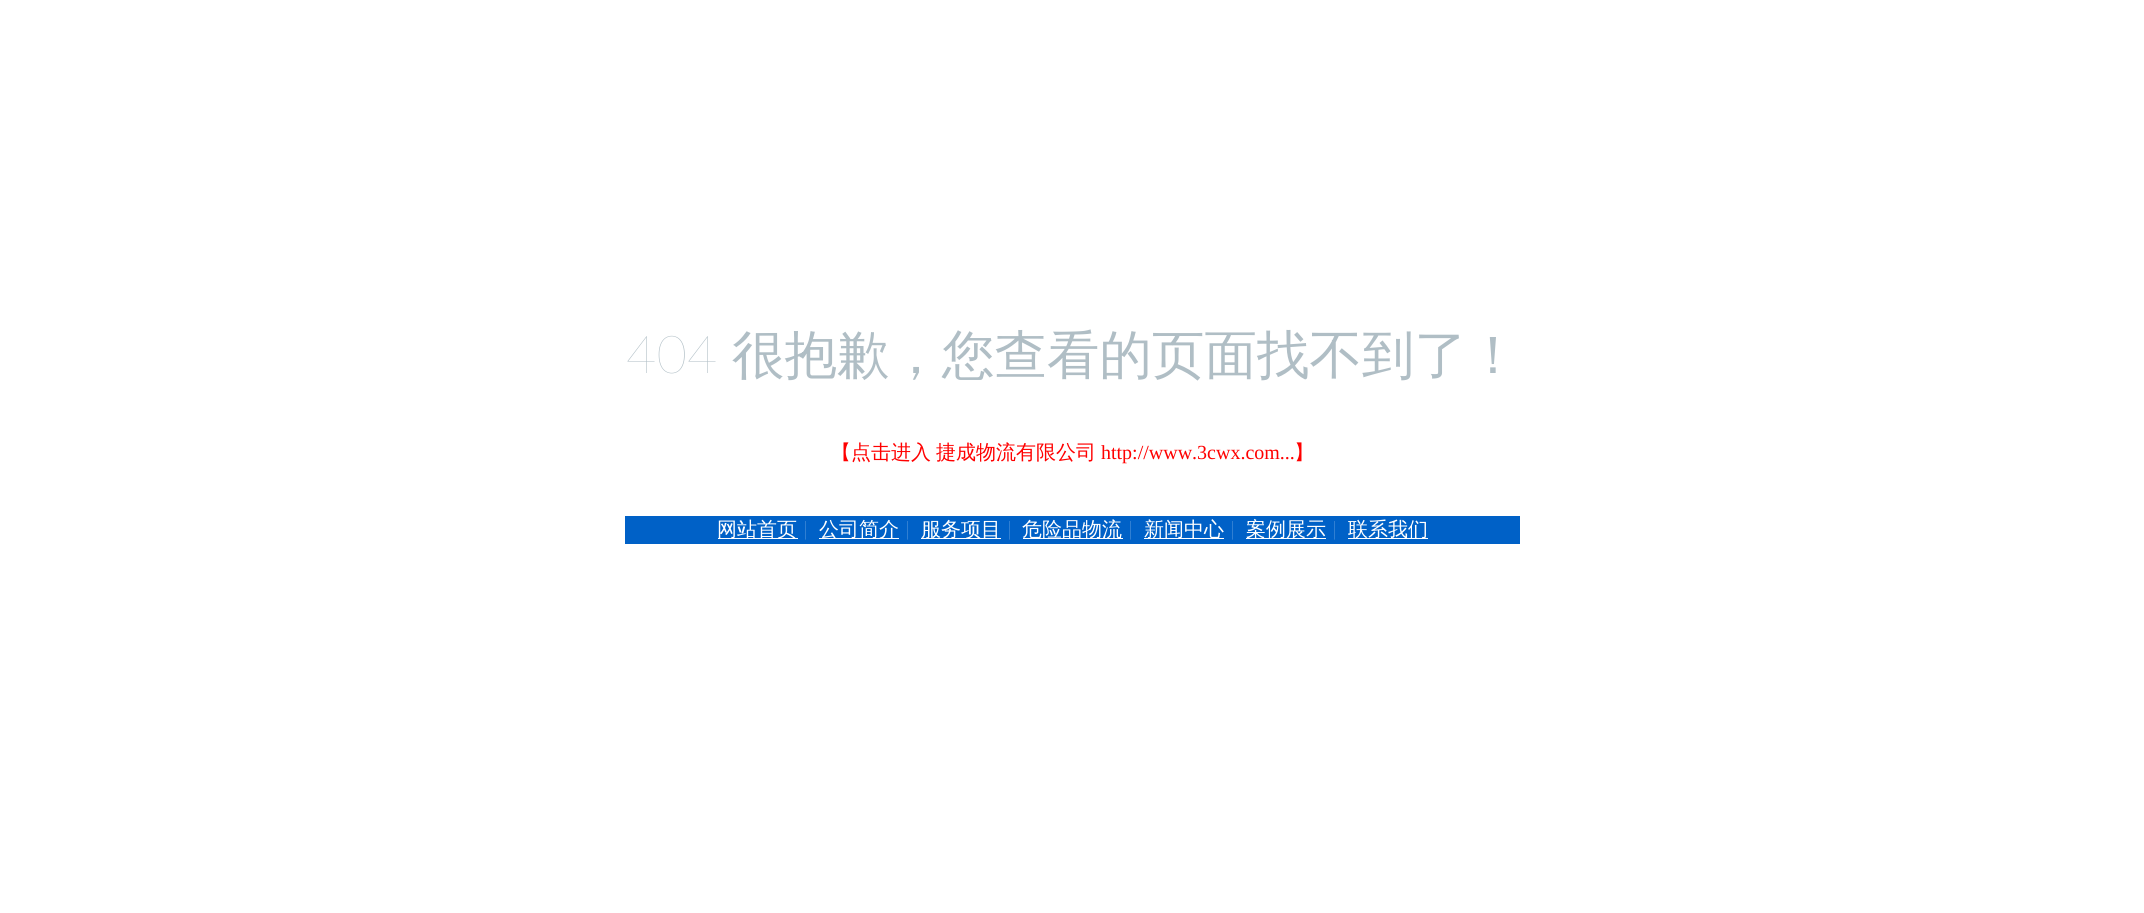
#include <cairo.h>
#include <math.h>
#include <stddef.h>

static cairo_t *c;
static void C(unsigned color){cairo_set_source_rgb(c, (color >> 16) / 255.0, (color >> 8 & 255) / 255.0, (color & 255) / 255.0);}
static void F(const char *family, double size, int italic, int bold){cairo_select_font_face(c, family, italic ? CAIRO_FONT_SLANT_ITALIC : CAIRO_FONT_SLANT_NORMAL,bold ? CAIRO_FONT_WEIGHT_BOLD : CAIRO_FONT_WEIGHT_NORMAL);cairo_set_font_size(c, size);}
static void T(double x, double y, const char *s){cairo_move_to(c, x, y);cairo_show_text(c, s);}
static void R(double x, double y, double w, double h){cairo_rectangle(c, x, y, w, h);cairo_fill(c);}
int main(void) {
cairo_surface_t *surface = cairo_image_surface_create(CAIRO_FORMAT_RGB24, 2144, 913);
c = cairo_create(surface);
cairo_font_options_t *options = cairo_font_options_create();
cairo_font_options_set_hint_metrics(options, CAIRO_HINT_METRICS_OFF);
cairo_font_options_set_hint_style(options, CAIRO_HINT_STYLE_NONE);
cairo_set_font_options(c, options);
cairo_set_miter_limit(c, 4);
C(0xffffff);
cairo_paint(c);
F("Lato ExtraLight",52.5,0,0);
C(0xb0bec5);
T(626,373,"404");
F("WenQuanYi Zen Hei Medium",52.5,0,0);
T(732,373,"很抱歉，您查看的页面找不到了！");
F("WenQuanYi Zen Hei Medium",20,0,0);
C(0xff0000);
T(831,459,"【点击进入");
T(936,459,"捷成物流有限公司");
F("Liberation Serif",20,0,0);
T(1101,459,"http://www.3cwx.com...");
F("WenQuanYi Zen Hei Medium",20,0,0);
T(1294,459,"】");
C(0x0061c7);
R(625,516,895,28);
C(0xffffff);
R(718,538,80,1);
T(717,536,"网站首页");
F("Lato ExtraLight",20,0,0);
T(803,536,"|");
R(819,538,80,1);
F("WenQuanYi Zen Hei Medium",20,0,0);
T(819,536,"公司简介");
F("Lato ExtraLight",20,0,0);
T(905,536,"|");
R(921,538,80,1);
F("WenQuanYi Zen Hei Medium",20,0,0);
T(921,536,"服务项目");
F("Lato ExtraLight",20,0,0);
T(1007,536,"|");
R(1023,538,100,1);
F("WenQuanYi Zen Hei Medium",20,0,0);
T(1022,536,"危险品物流");
F("Lato ExtraLight",20,0,0);
T(1128,536,"|");
R(1144,538,80,1);
F("WenQuanYi Zen Hei Medium",20,0,0);
T(1144,536,"新闻中心");
F("Lato ExtraLight",20,0,0);
T(1230,536,"|");
R(1246,538,80,1);
F("WenQuanYi Zen Hei Medium",20,0,0);
T(1246,536,"案例展示");
F("Lato ExtraLight",20,0,0);
T(1332,536,"|");
R(1348,538,80,1);
F("WenQuanYi Zen Hei Medium",20,0,0);
T(1348,536,"联系我们");
cairo_surface_write_to_png(surface, "o.png");
cairo_font_options_destroy(options);
cairo_destroy(c);
cairo_surface_destroy(surface);
return 0;
}
